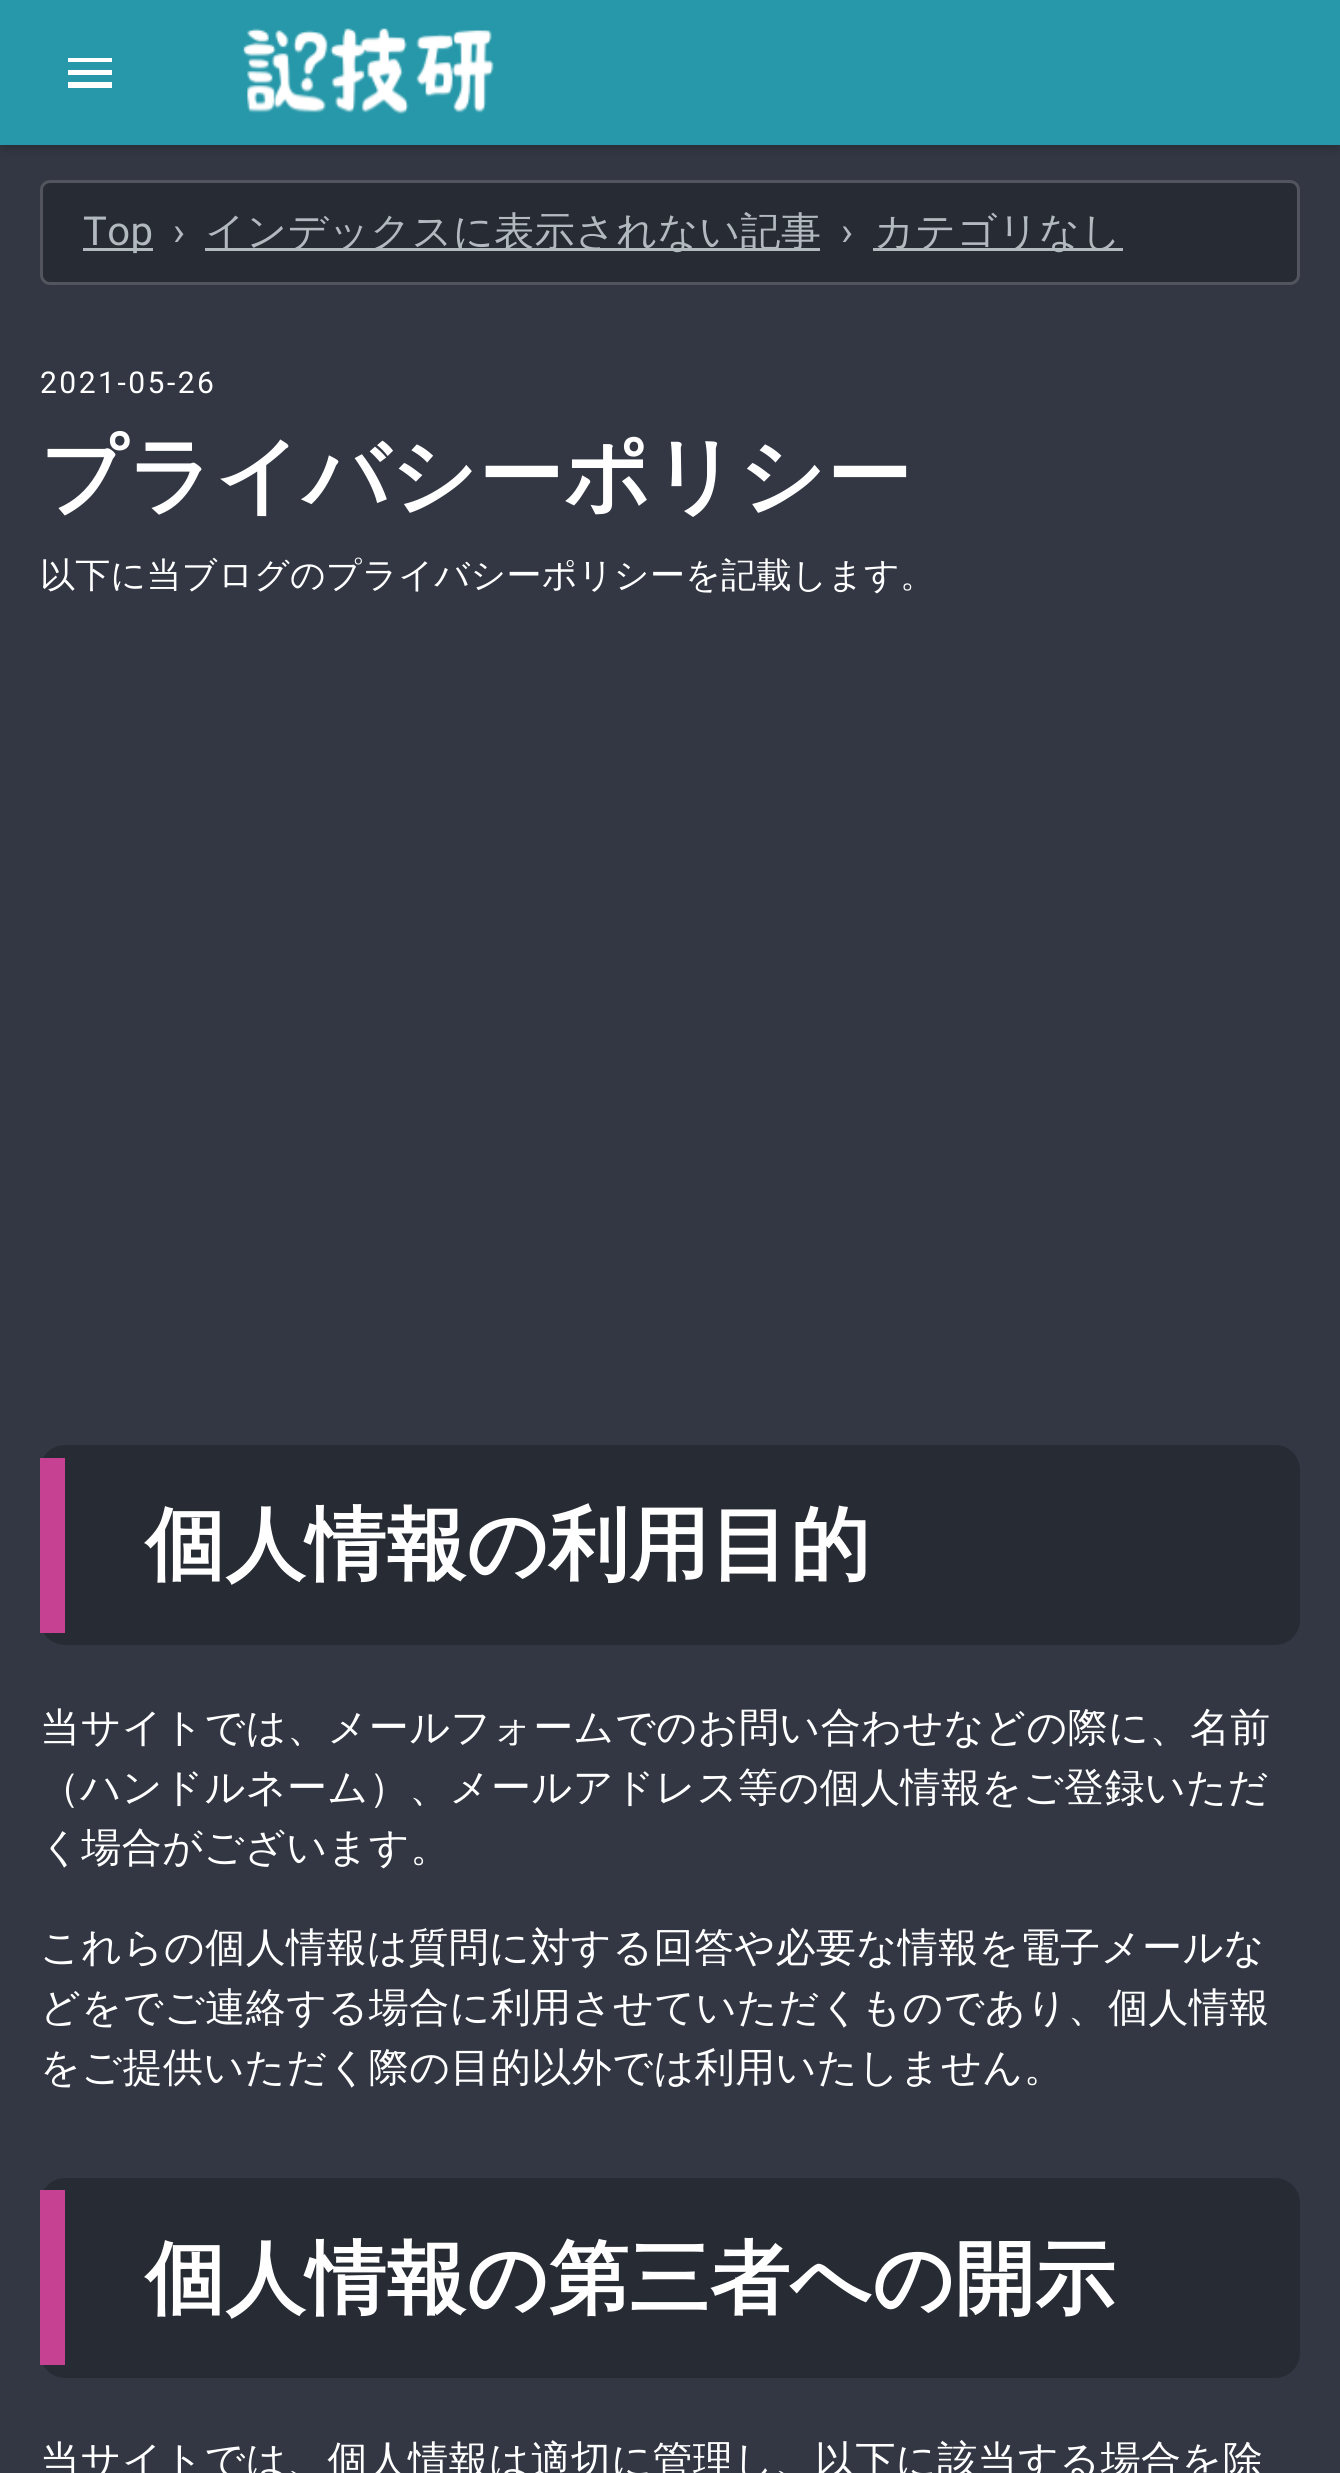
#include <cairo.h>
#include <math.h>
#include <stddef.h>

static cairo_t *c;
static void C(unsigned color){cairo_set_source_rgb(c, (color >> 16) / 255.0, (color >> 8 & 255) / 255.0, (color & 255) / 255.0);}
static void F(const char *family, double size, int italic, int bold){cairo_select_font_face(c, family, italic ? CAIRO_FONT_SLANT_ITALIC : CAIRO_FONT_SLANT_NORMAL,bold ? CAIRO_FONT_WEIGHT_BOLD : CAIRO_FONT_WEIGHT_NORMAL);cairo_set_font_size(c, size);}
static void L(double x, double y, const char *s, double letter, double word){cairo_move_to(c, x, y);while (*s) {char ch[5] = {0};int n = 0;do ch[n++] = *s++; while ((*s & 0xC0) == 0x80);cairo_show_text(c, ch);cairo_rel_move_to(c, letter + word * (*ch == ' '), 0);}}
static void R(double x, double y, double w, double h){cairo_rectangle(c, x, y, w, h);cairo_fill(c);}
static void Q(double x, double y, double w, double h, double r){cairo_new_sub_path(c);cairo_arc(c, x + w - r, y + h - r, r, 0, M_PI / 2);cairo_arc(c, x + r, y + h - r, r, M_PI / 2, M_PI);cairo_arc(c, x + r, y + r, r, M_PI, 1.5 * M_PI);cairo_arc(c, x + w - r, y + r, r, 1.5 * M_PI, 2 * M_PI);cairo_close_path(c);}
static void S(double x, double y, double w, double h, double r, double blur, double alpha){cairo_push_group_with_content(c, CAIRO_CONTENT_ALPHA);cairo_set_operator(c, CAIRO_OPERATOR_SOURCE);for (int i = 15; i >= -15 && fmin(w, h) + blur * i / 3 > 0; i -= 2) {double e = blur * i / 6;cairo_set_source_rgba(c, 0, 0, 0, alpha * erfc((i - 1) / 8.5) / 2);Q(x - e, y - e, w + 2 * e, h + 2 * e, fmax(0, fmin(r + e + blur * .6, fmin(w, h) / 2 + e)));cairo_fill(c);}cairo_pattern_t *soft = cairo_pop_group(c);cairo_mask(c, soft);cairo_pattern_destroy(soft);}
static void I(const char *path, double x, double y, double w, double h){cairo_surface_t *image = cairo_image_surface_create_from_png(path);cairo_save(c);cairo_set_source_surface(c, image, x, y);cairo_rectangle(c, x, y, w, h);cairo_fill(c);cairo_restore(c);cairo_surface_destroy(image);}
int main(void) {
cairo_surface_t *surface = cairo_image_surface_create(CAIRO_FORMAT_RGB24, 1340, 2473);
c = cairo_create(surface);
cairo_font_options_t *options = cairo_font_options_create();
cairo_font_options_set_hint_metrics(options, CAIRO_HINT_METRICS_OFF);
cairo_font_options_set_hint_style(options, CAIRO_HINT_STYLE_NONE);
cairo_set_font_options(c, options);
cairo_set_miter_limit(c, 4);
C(0x323743);
cairo_paint(c);
C(0x000000);
S(3,8,1335,140,0,5,.2);
C(0x2698a9);
R(0,0,1340,145);
C(0xffffff);
cairo_new_path(c);
cairo_move_to(c,68,88);
cairo_line_to(c,112,88);
cairo_line_to(c,112,82);
cairo_line_to(c,68,82);
cairo_close_path(c);
cairo_move_to(c,68,75);
cairo_line_to(c,112,75);
cairo_line_to(c,112,70);
cairo_line_to(c,68,70);
cairo_close_path(c);
cairo_move_to(c,68,58);
cairo_line_to(c,68,62);
cairo_line_to(c,112,62);
cairo_line_to(c,112,58);
cairo_close_path(c);
cairo_fill(c);
I("1.png",243,28,251,86);
C(0x272b34);
Q(41.5,181.5,1257,102,8.5);
cairo_fill_preserve(c);
C(0x52555d);
cairo_set_line_width(c,3);
cairo_stroke(c);
C(0xb2b9bf);
R(83,248,70,3);
F("Roboto",40,0,0);
L(83,245,"Top",.4,0);
L(173,245,"›",.4,0);
R(205,248,615,3);
F("WenQuanYi Zen Hei Medium",40,0,0);
L(205,245,"インデックスに表示されない記事",.4,0);
F("Roboto",40,0,0);
L(841,245,"›",.4,0);
R(873,248,250,3);
F("WenQuanYi Zen Hei Medium",40,0,0);
L(874,245,"カテゴリなし",.4,0);
F("Roboto",30,0,0);
C(0xffffff);
L(40,393,"2021-05-26",2.5,0);
F("WenQuanYi Zen Hei",85,0,1);
L(40,505,"プライバシーポリシー",.6,0);
F("WenQuanYi Zen Hei Medium",35,0,0);
L(40,587,"以下に当ブログのプライバシーポリシーを記載します。",.25,0);
C(0x272b34);
Q(40,1445,1260,200,25);
cairo_fill(c);
C(0xc64191);
R(40,1458,25,175);
F("WenQuanYi Zen Hei",80,0,1);
C(0xffffff);
L(145,1572,"個人情報の利用目的",.4,0);
F("WenQuanYi Zen Hei Medium",40,0,0);
L(40,1741,"当サイトでは、メールフォームでのお問い合わせなどの際に、名前",.4,0);
L(40,1801,"（ハンドルネーム）、メールアドレス等の個人情報をご登録いただ",.4,0);
L(40,1861,"く場合がございます。",.4,0);
L(40,1961,"これらの個人情報は質問に対する回答や必要な情報を電子メールな",.4,0);
L(40,2021,"どをでご連絡する場合に利用させていただくものであり、個人情報",.4,0);
L(40,2081,"をご提供いただく際の目的以外では利用いたしません。",.4,0);
C(0x272b34);
Q(40,2178,1260,200,25);
cairo_fill(c);
C(0xc64191);
R(40,2190,25,175);
F("WenQuanYi Zen Hei",80,0,1);
C(0xffffff);
L(145,2306,"個人情報の第三者への開示",.4,0);
F("WenQuanYi Zen Hei Medium",40,0,0);
L(40,2474,"当サイトでは、個人情報は適切に管理し、以下に該当する場合を除",.4,0);
cairo_surface_write_to_png(surface, "o.png");
cairo_font_options_destroy(options);
cairo_destroy(c);
cairo_surface_destroy(surface);
return 0;
}
